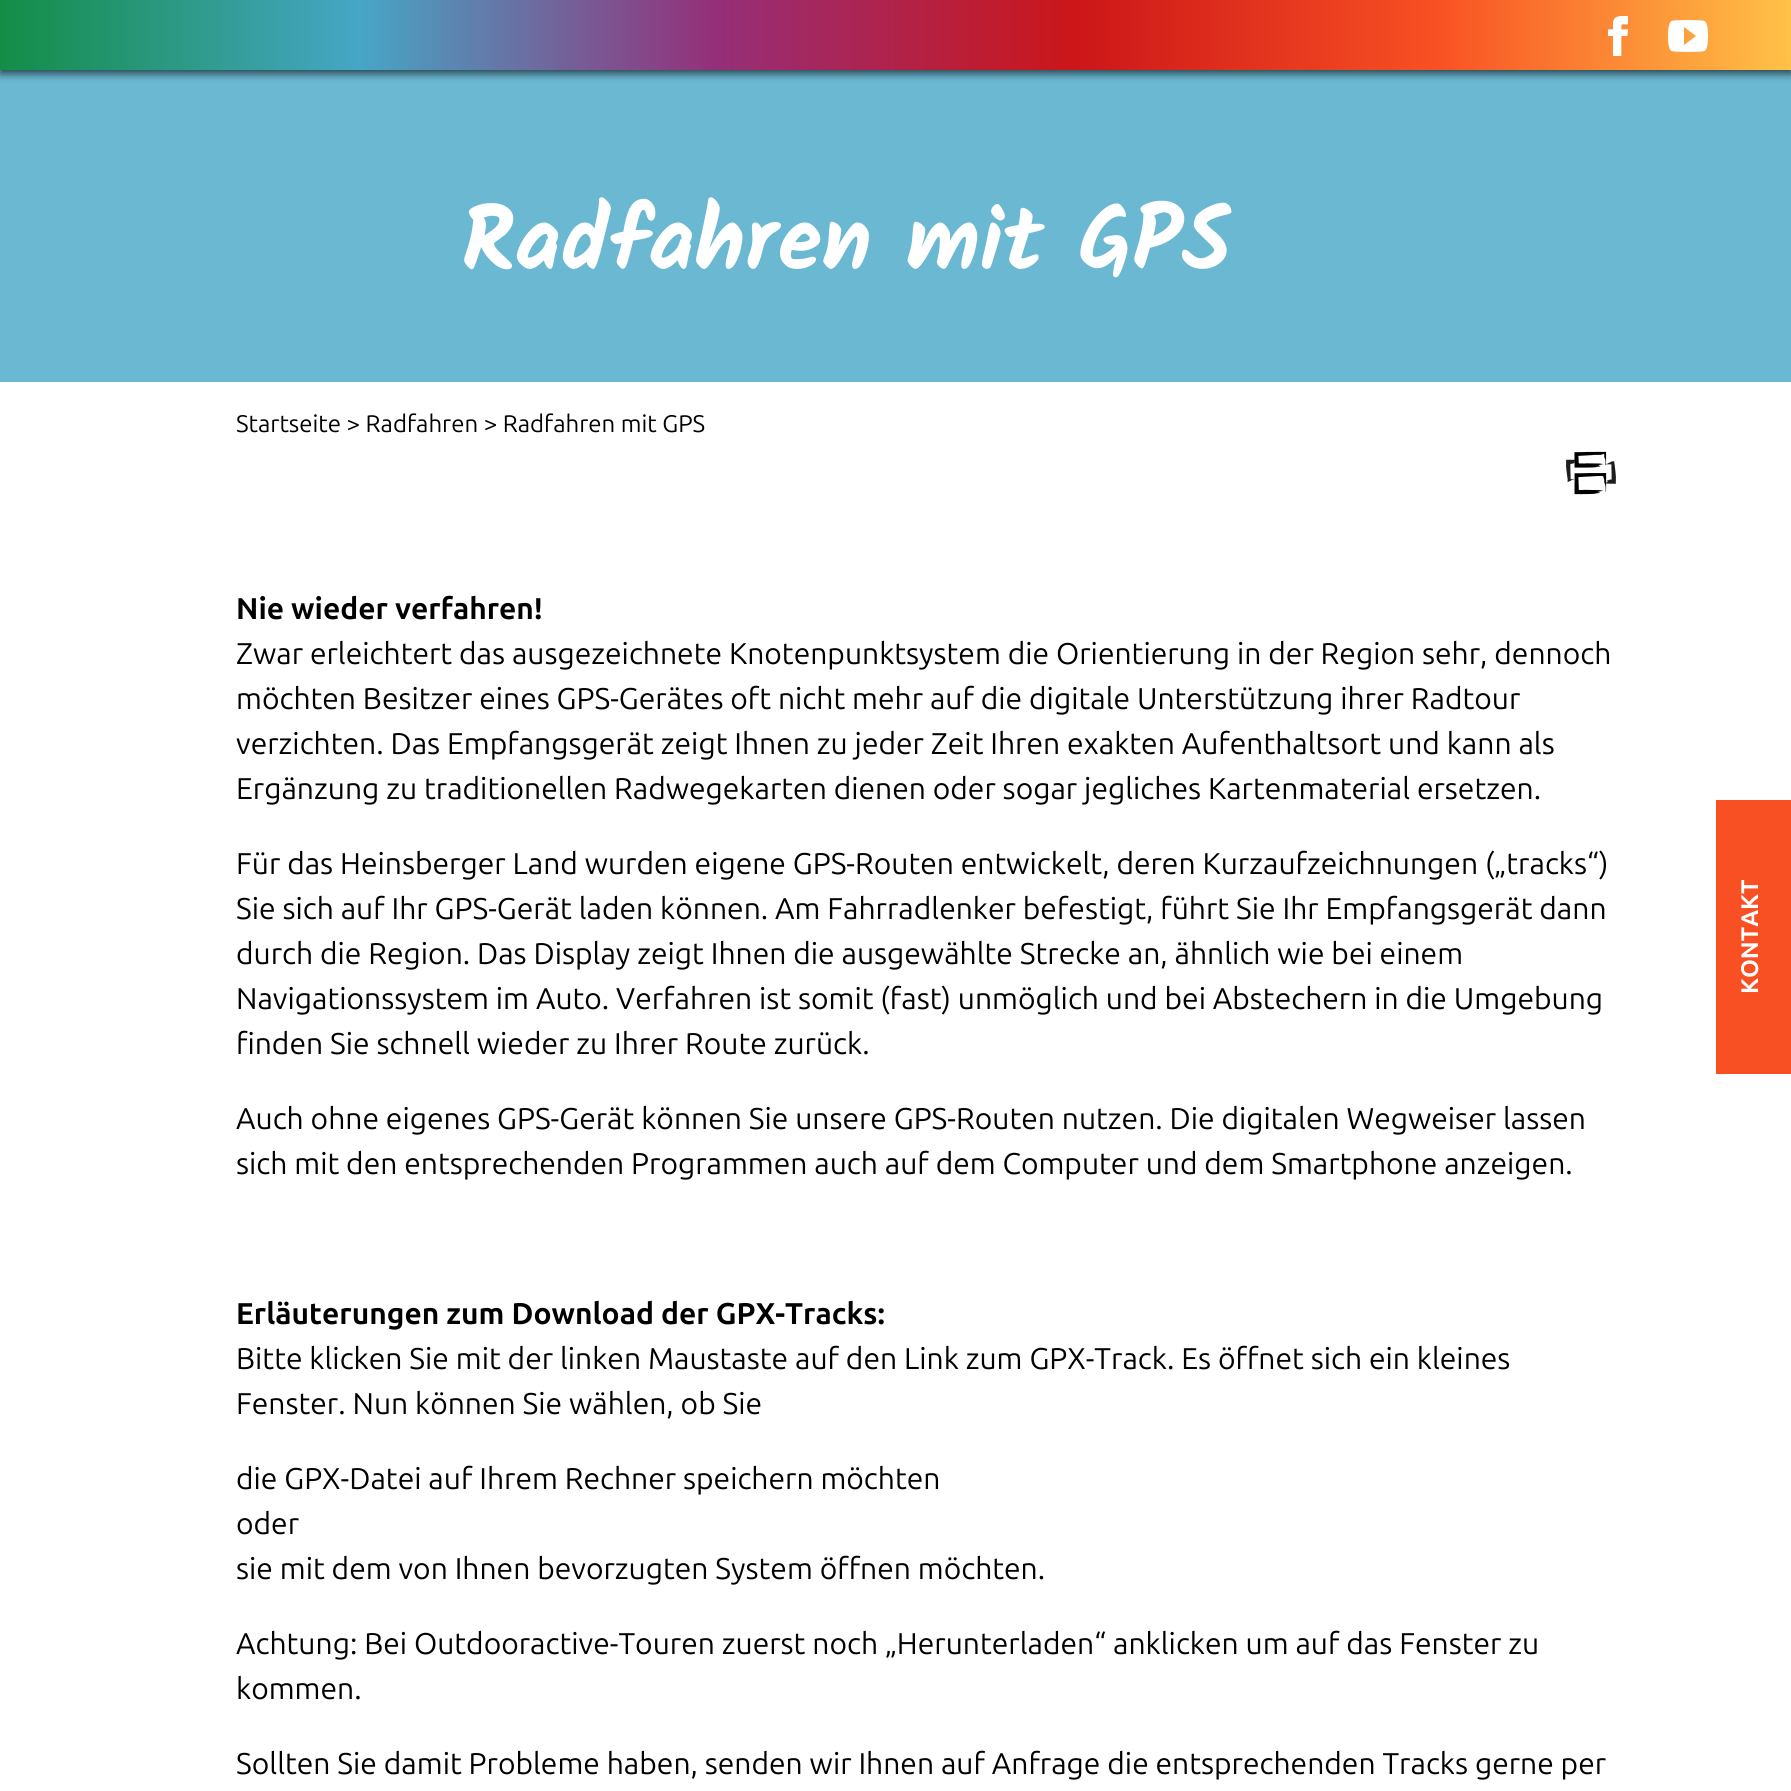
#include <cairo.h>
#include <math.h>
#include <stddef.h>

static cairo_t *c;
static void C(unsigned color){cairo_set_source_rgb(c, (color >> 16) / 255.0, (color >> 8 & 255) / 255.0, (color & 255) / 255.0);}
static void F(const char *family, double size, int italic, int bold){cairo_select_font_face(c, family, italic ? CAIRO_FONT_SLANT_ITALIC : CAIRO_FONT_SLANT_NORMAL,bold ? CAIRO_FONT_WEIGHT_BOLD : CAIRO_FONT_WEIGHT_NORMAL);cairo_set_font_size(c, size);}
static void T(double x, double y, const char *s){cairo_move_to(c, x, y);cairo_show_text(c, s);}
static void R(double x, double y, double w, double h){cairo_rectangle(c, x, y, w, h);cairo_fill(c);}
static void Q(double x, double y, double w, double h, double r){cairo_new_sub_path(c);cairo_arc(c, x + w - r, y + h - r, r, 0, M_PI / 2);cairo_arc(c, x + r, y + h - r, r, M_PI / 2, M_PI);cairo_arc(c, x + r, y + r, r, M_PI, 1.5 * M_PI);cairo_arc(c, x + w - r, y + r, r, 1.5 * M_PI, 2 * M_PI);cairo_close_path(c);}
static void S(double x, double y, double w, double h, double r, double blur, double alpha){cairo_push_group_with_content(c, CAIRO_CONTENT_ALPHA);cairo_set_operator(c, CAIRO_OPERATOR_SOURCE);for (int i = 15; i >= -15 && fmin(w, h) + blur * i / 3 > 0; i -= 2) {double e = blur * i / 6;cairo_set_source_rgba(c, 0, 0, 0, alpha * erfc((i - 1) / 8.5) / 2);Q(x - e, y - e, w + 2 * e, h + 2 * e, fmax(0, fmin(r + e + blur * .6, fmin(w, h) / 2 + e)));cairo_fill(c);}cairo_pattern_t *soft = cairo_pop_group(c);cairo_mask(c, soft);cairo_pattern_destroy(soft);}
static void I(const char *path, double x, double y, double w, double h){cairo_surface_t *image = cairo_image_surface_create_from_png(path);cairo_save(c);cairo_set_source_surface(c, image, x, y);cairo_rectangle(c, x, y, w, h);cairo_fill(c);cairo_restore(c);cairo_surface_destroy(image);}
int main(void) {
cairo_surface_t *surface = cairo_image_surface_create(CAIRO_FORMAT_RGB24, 1791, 1791);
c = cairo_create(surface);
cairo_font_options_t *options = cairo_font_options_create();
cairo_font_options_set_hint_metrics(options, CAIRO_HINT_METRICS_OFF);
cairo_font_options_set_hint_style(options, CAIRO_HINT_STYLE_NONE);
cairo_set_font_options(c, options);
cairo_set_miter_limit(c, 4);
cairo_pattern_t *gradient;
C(0xffffff);
cairo_paint(c);
C(0x6bb8d2);
R(0,70,1791,312);
C(0x000000);
S(0,4,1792,70,0,4,.6);
gradient = cairo_pattern_create_linear(0,35,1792,35);
cairo_pattern_add_color_stop_rgba(gradient,0,0.075,0.553,0.275,1);
cairo_pattern_add_color_stop_rgba(gradient,.2,0.275,0.651,0.776,1);
cairo_pattern_add_color_stop_rgba(gradient,.4,0.584,0.184,0.475,1);
cairo_pattern_add_color_stop_rgba(gradient,.6,0.8,0.086,0.098,1);
cairo_pattern_add_color_stop_rgba(gradient,.8,0.973,0.314,0.137,1);
cairo_pattern_add_color_stop_rgba(gradient,1,1,0.761,0.278,1);
cairo_set_source(c,gradient);
cairo_pattern_destroy(gradient);
R(0,0,1791,70);
I("1.png",1608,16,20,40);
I("2.png",1668,20,40,32);
F("Kalam",90,0,1);
C(0xffffff);
T(461,270,"Radfahren mit GPS");
F("Ubuntu",24,0,0);
C(0x000000);
T(236,432,"Startseite > Radfahren > Radfahren mit GPS");
I("3.png",1566,451,50,44);
F("Ubuntu",30,0,1);
T(236,619,"Nie wieder verfahren!");
F("Ubuntu",30,0,0);
T(236,664,"Zwar erleichtert das ausgezeichnete Knotenpunktsystem die Orientierung in der Region sehr, dennoch");
T(236,709,"möchten Besitzer eines GPS-Gerätes oft nicht mehr auf die digitale Unterstützung ihrer Radtour");
T(236,754,"verzichten. Das Empfangsgerät zeigt Ihnen zu jeder Zeit Ihren exakten Aufenthaltsort und kann als");
T(236,799,"Ergänzung zu traditionellen Radwegekarten dienen oder sogar jegliches Kartenmaterial ersetzen.");
T(236,874,"Für das Heinsberger Land wurden eigene GPS-Routen entwickelt, deren Kurzaufzeichnungen („tracks“)");
T(236,919,"Sie sich auf Ihr GPS-Gerät laden können. Am Fahrradlenker befestigt, führt Sie Ihr Empfangsgerät dann");
T(236,964,"durch die Region. Das Display zeigt Ihnen die ausgewählte Strecke an, ähnlich wie bei einem");
T(236,1009,"Navigationssystem im Auto. Verfahren ist somit (fast) unmöglich und bei Abstechern in die Umgebung");
T(236,1054,"finden Sie schnell wieder zu Ihrer Route zurück.");
T(236,1129,"Auch ohne eigenes GPS-Gerät können Sie unsere GPS-Routen nutzen. Die digitalen Wegweiser lassen");
T(236,1174,"sich mit den entsprechenden Programmen auch auf dem Computer und dem Smartphone anzeigen.");
F("Ubuntu",30,0,1);
T(236,1324,"Erläuterungen zum Download der GPX-Tracks:");
F("Ubuntu",30,0,0);
T(236,1369,"Bitte klicken Sie mit der linken Maustaste auf den Link zum GPX-Track. Es öffnet sich ein kleines");
T(236,1414,"Fenster. Nun können Sie wählen, ob Sie");
T(236,1489,"die GPX-Datei auf Ihrem Rechner speichern möchten");
T(236,1534,"oder");
T(236,1579,"sie mit dem von Ihnen bevorzugten System öffnen möchten.");
T(236,1654,"Achtung: Bei Outdooractive-Touren zuerst noch „Herunterladen“ anklicken um auf das Fenster zu");
T(236,1699,"kommen.");
T(236,1774,"Sollten Sie damit Probleme haben, senden wir Ihnen auf Anfrage die entsprechenden Tracks gerne per");
C(0xf85023);
R(1716,800,75,274);
F("Ubuntu",24,0,1);
C(0xffffff);
cairo_save(c);
cairo_translate(c,1758,994);
cairo_rotate(c,-90 * M_PI / 180);
T(0,0,"KONTAKT");
cairo_restore(c);
cairo_surface_write_to_png(surface, "o.png");
cairo_font_options_destroy(options);
cairo_destroy(c);
cairo_surface_destroy(surface);
return 0;
}
